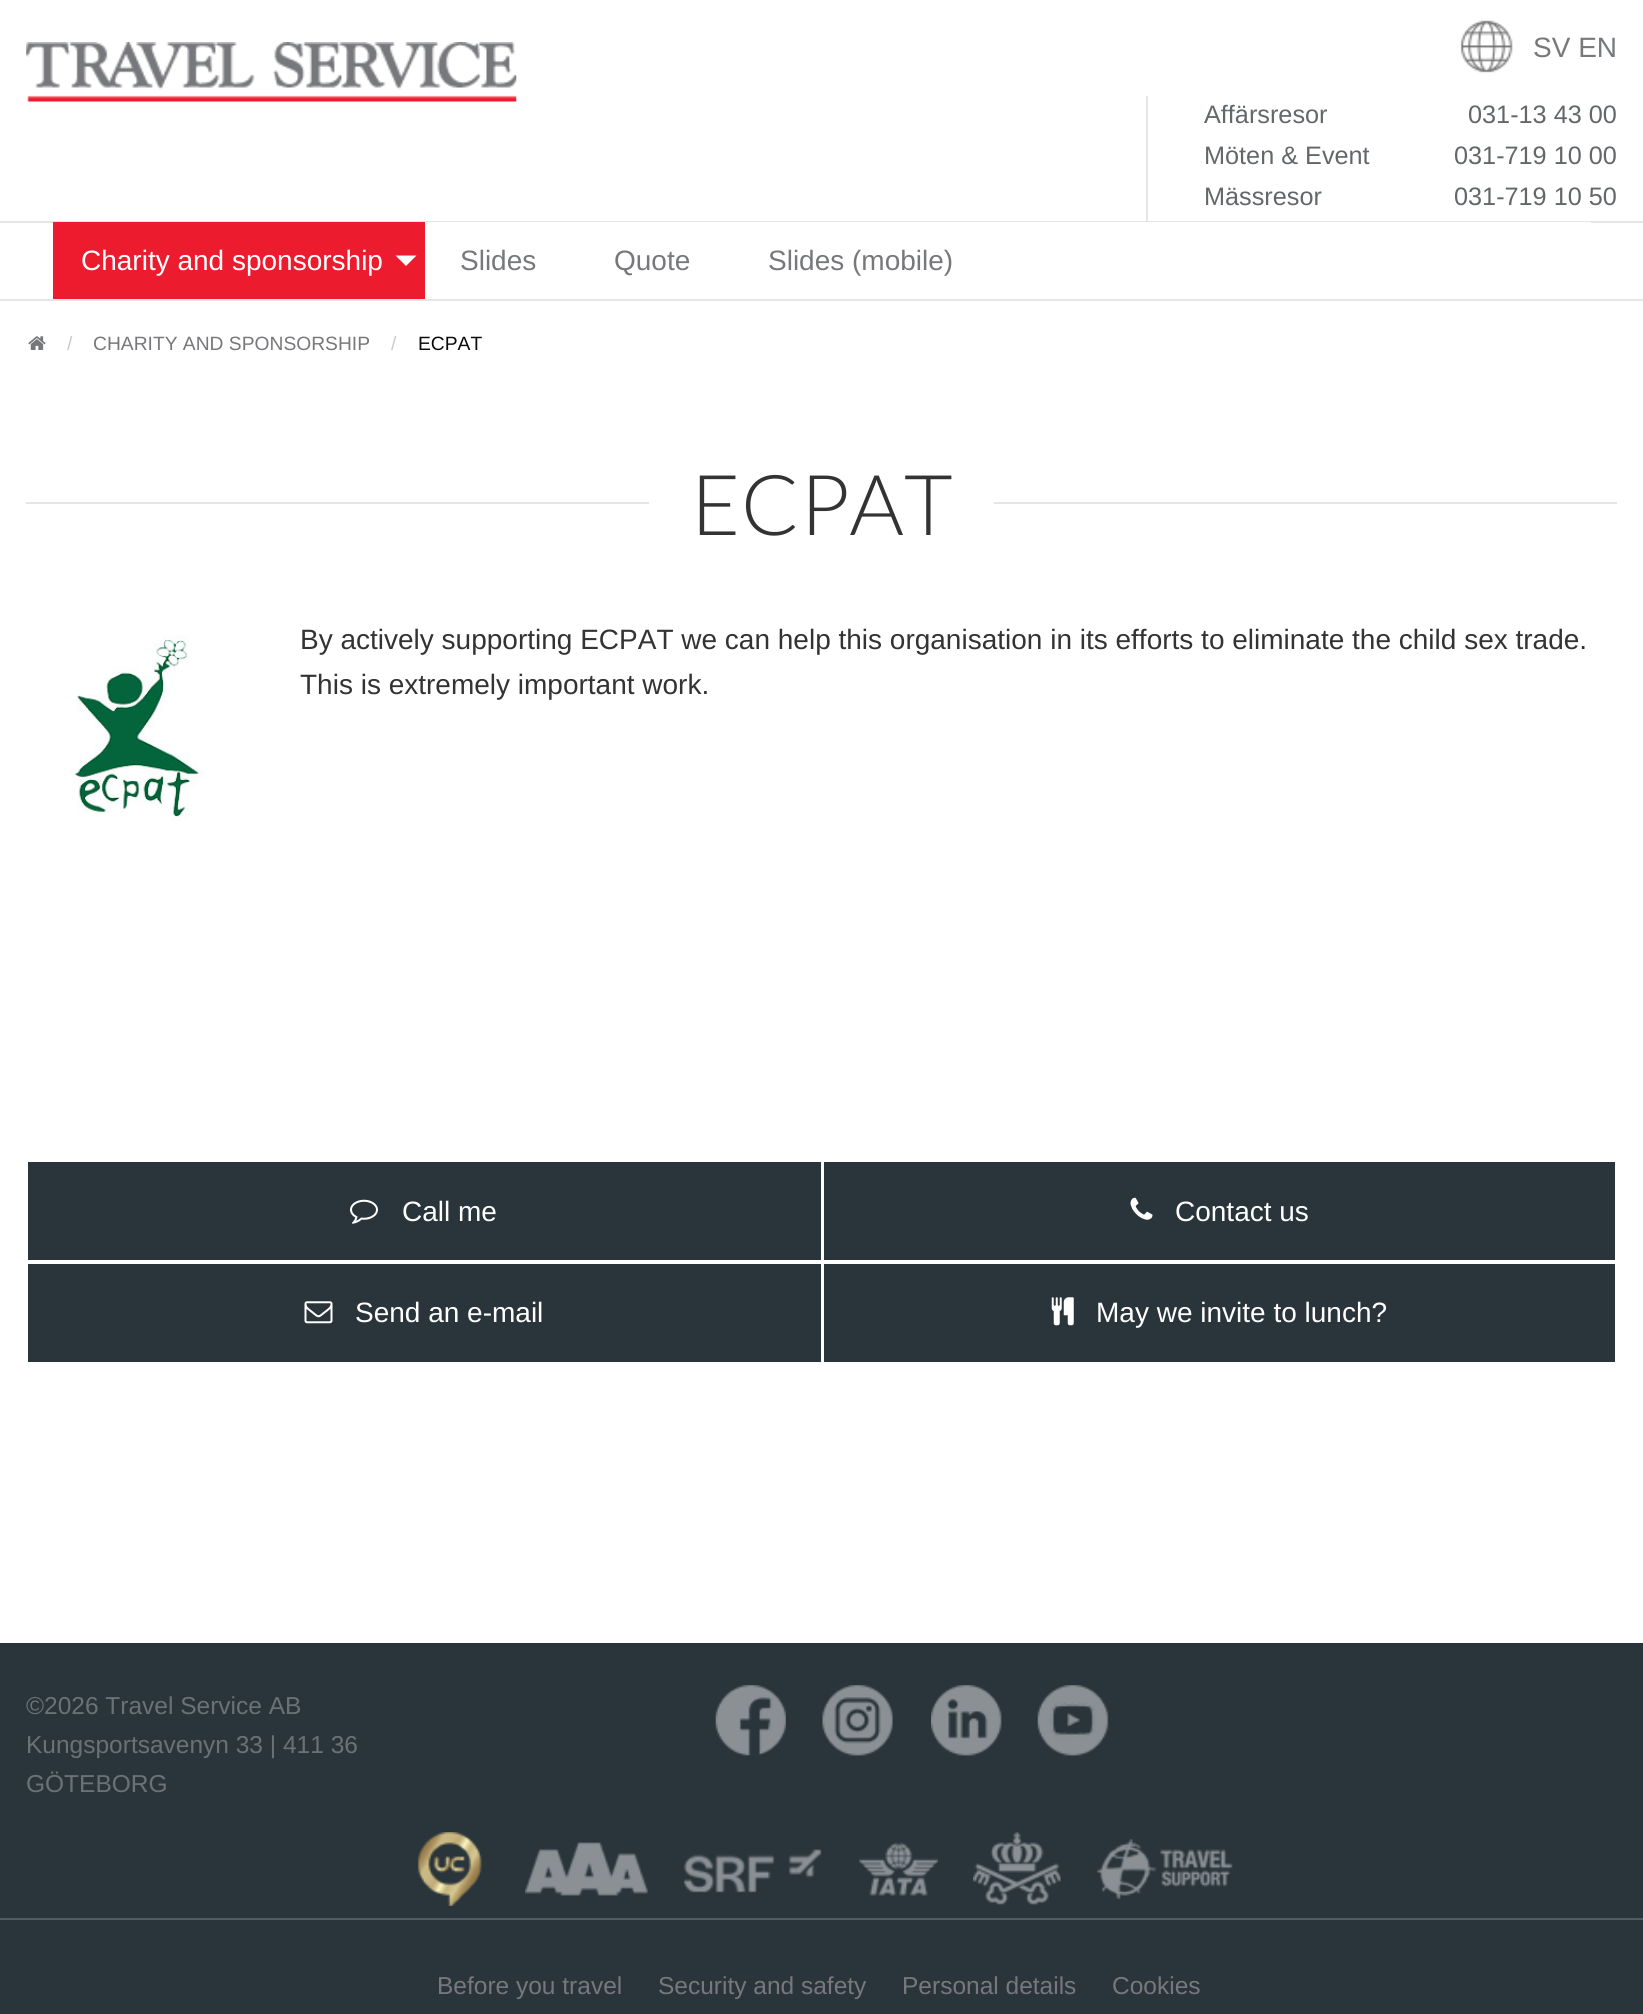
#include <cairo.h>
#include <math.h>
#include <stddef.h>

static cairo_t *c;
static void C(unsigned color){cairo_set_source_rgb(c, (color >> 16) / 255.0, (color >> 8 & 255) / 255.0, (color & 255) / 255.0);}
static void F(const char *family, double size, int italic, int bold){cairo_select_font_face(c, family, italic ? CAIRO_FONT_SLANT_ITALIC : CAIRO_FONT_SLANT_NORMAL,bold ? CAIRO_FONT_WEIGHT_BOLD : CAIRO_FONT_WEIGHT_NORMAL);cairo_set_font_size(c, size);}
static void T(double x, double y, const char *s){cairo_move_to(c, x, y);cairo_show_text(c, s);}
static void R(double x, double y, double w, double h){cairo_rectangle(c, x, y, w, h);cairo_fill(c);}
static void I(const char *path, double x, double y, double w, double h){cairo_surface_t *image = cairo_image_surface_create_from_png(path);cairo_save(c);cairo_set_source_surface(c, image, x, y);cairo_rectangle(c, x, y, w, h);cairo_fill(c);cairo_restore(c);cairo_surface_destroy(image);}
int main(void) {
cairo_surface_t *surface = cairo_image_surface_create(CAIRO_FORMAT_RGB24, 1643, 2014);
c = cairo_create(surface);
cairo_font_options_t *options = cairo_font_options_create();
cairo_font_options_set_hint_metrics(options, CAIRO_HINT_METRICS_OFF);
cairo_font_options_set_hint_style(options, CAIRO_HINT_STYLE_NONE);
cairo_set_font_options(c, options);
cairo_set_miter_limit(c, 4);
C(0xffffff);
cairo_paint(c);
I("1.png",26,42,491,60);
I("2.png",1460,20,53,53);
F("Liberation Sans",28,0,0);
C(0x77787b);
T(1533,57,"SV EN");
F("Liberation Sans",25.25,0,0);
C(0x64676a);
T(1204,123,"Affärsresor");
T(1468,123,"031-13 43 00");
T(1204,164,"Möten & Event");
T(1454,164,"031-719 10 00");
C(0xe6e6e6);
R(1146,96,2,125);
C(0x64676a);
T(1204,205,"Mässresor");
T(1454,205,"031-719 10 50");
C(0xe5e5e5);
R(0,221,1643,2);
R(0,299,1643,2);
C(0xffffff);
R(425,222,1166,1);
C(0xed1b2e);
R(53,222,372,77);
F("Liberation Sans",28,0,0);
C(0xffffff);
T(81,270,"Charity and sponsorship");
cairo_new_path(c);
cairo_move_to(c,395.5,255.5);
cairo_line_to(c,416.5,255.5);
cairo_line_to(c,406,266);
cairo_close_path(c);
cairo_fill(c);
C(0x77787b);
T(460,270,"Slides");
T(614,270,"Quote");
T(768,270,"Slides (mobile)");
I("3.png",28,336,18,14);
F("Liberation Sans",19.25,0,0);
C(0xcacaca);
T(67,350,"/");
C(0x77787b);
T(93,350,"CHARITY AND SPONSORSHIP");
C(0xcacaca);
T(391,350,"/");
C(0x0a0a0a);
T(418,350,"ECPAT");
C(0xe6e6e6);
R(26,502,623,2);
F("Lato Light",84,0,0);
C(0x333333);
T(691,535,"ECPAT");
C(0xe6e6e6);
R(994,502,623,2);
I("4.png",71,635,134,186);
F("Liberation Sans",28,0,0);
C(0x333333);
T(300,649,"By actively supporting ECPAT we can help this organisation in its efforts to eliminate the child sex trade.");
T(300,694,"This is extremely important work.");
C(0x2a353b);
R(28,1162,793,98);
I("5.png",350,1199,28,25);
C(0xffffff);
T(402,1221,"Call me");
C(0x2a353b);
R(824,1162,791,98);
I("6.png",1130,1197,23,23);
C(0xffffff);
T(1175,1221,"Contact us");
C(0x2a353b);
R(28,1264,793,98);
I("7.png",304,1301,29,23);
C(0xffffff);
T(355,1322,"Send an e-mail");
C(0x2a353b);
R(824,1264,791,98);
I("8.png",1051,1297,23,29);
C(0xffffff);
T(1096,1322,"May we invite to lunch?");
C(0x2a353b);
R(0,1643,1643,371);
F("Liberation Sans",24.5,0,0);
C(0x6a7276);
T(26,1714,"©2026 Travel Service AB");
T(26,1753,"Kungsportsavenyn 33 | 411 36");
T(26,1792,"GÖTEBORG");
I("9.png",715,1685,71,71);
I("10.png",822,1685,71,71);
I("11.png",931,1685,71,71);
I("12.png",1037,1685,72,71);
I("13.png",417,1832,65,74);
I("14.png",525,1842,123,54);
I("15.png",683,1849,139,44);
I("16.png",859,1842,79,54);
I("17.png",973,1832,88,73);
I("18.png",1097,1839,136,61);
C(0x525b61);
R(0,1918,1643,2);
C(0x77787b);
T(437,1994,"Before you travel");
T(658,1994,"Security and safety");
T(902,1994,"Personal details");
T(1112,1994,"Cookies");
cairo_surface_write_to_png(surface, "o.png");
cairo_font_options_destroy(options);
cairo_destroy(c);
cairo_surface_destroy(surface);
return 0;
}
